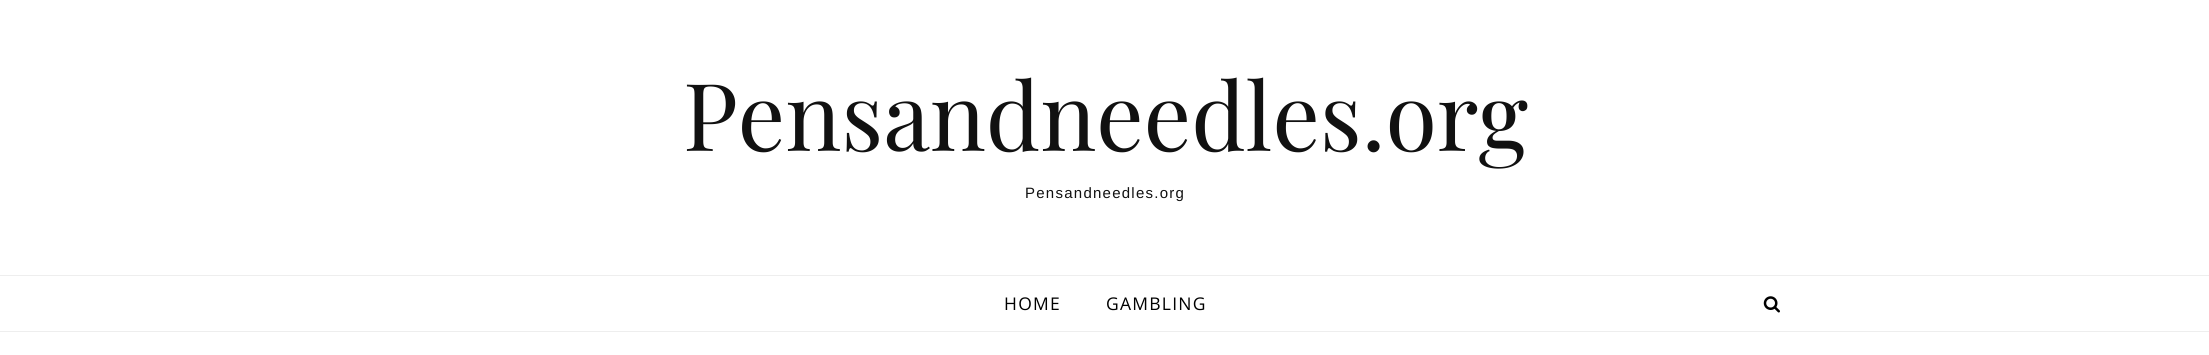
#include <cairo.h>
#include <math.h>
#include <stddef.h>

static cairo_t *c;
static void C(unsigned color){cairo_set_source_rgb(c, (color >> 16) / 255.0, (color >> 8 & 255) / 255.0, (color & 255) / 255.0);}
static void F(const char *family, double size, int italic, int bold){cairo_select_font_face(c, family, italic ? CAIRO_FONT_SLANT_ITALIC : CAIRO_FONT_SLANT_NORMAL,bold ? CAIRO_FONT_WEIGHT_BOLD : CAIRO_FONT_WEIGHT_NORMAL);cairo_set_font_size(c, size);}
static void T(double x, double y, const char *s){cairo_move_to(c, x, y);cairo_show_text(c, s);}
static void L(double x, double y, const char *s, double letter, double word){cairo_move_to(c, x, y);while (*s) {char ch[5] = {0};int n = 0;do ch[n++] = *s++; while ((*s & 0xC0) == 0x80);cairo_show_text(c, ch);cairo_rel_move_to(c, letter + word * (*ch == ' '), 0);}}
static void R(double x, double y, double w, double h){cairo_rectangle(c, x, y, w, h);cairo_fill(c);}
static void I(const char *path, double x, double y, double w, double h){cairo_surface_t *image = cairo_image_surface_create_from_png(path);cairo_save(c);cairo_set_source_surface(c, image, x, y);cairo_rectangle(c, x, y, w, h);cairo_fill(c);cairo_restore(c);cairo_surface_destroy(image);}
int main(void) {
cairo_surface_t *surface = cairo_image_surface_create(CAIRO_FORMAT_RGB24, 2209, 355);
c = cairo_create(surface);
cairo_font_options_t *options = cairo_font_options_create();
cairo_font_options_set_hint_metrics(options, CAIRO_HINT_METRICS_OFF);
cairo_font_options_set_hint_style(options, CAIRO_HINT_STYLE_NONE);
cairo_set_font_options(c, options);
cairo_set_miter_limit(c, 4);
C(0xffffff);
cairo_paint(c);
F("Playfair Display",93.75,0,0);
C(0x111111);
T(683,151,"Pensandneedles.org");
F("Liberation Sans",15,0,0);
L(1025,198,"Pensandneedles.org",1.25,0);
C(0xeeeeee);
R(0,275,2209,1);
R(0,331,2209,1);
F("Open Sans",17.5,0,0);
C(0x000000);
L(1004,310,"HOME",1.25,0);
L(1106,310,"GAMBLING",1.25,0);
I("1.png",1763,296,17,17);
cairo_surface_write_to_png(surface, "o.png");
cairo_font_options_destroy(options);
cairo_destroy(c);
cairo_surface_destroy(surface);
return 0;
}
